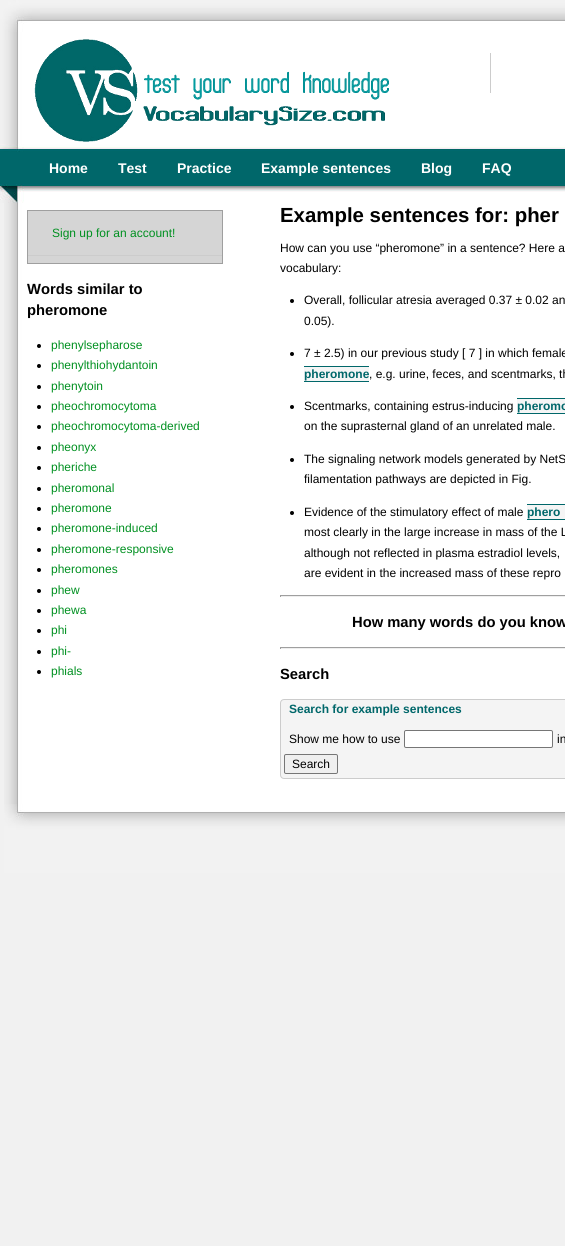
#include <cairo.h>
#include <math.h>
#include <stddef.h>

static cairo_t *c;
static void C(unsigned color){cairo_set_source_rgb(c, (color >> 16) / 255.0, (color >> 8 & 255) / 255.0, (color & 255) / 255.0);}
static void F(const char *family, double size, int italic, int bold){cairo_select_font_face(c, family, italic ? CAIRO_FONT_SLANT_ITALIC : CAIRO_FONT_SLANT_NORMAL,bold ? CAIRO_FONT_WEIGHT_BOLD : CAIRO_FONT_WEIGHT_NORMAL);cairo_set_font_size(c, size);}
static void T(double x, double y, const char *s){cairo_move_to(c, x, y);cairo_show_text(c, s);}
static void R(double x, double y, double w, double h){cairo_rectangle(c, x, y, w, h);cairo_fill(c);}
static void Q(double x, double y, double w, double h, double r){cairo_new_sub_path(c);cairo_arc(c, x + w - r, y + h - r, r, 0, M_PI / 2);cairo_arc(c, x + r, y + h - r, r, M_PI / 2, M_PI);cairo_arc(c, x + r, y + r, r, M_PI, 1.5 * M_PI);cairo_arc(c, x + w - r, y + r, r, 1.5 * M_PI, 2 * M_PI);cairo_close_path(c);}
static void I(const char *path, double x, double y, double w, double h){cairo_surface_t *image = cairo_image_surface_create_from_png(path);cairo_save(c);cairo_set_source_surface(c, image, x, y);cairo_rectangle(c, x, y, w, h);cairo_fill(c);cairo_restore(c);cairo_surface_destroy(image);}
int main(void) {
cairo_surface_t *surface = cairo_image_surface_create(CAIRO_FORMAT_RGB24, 565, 1246);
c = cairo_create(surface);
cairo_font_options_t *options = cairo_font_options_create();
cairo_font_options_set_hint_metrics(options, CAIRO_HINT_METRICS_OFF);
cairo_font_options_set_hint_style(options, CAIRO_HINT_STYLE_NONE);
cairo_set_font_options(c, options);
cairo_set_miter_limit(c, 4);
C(0xf1f1f1);
cairo_paint(c);
I("1.png",4,203,561,601);
I("2.png",0,0,565,203);
I("3.png",34,39,355,103);
C(0xcccccc);
R(490,53,1,40);
F("Liberation Sans",14,0,1);
C(0xffffff);
T(49,173,"Home");
T(118,173,"Test");
T(177,173,"Practice");
T(261,173,"Example sentences");
T(421,173,"Blog");
T(482,173,"FAQ");
C(0xd5d5d5);
cairo_rectangle(c,27.5,210.5,195,53);
cairo_fill_preserve(c);
C(0x9f9f9f);
cairo_set_line_width(c,1);
cairo_stroke(c);
F("Liberation Sans",12,0,0);
C(0x009020);
T(52,237,"Sign up for an account!");
C(0xcccccc);
R(28,255,194,1);
F("Liberation Sans",14.75,0,1);
C(0x000000);
T(27,294,"Words similar to");
T(27,315,"pheromone");
cairo_new_path(c);
cairo_arc(c,39,346,2,0,2 * M_PI);
cairo_fill(c);
F("Liberation Sans",12,0,0);
C(0x009020);
T(51,349,"phenylsepharose");
C(0x000000);
cairo_new_path(c);
cairo_arc(c,39,366,2,0,2 * M_PI);
cairo_fill(c);
C(0x009020);
T(51,369,"phenylthiohydantoin");
C(0x000000);
cairo_new_path(c);
cairo_arc(c,39,387,2,0,2 * M_PI);
cairo_fill(c);
C(0x009020);
T(51,390,"phenytoin");
C(0x000000);
cairo_new_path(c);
cairo_arc(c,39,407,2,0,2 * M_PI);
cairo_fill(c);
C(0x009020);
T(51,410,"pheochromocytoma");
C(0x000000);
cairo_new_path(c);
cairo_arc(c,39,427,2,0,2 * M_PI);
cairo_fill(c);
C(0x009020);
T(51,430,"pheochromocytoma-derived");
C(0x000000);
cairo_new_path(c);
cairo_arc(c,39,448,2,0,2 * M_PI);
cairo_fill(c);
C(0x009020);
T(51,451,"pheonyx");
C(0x000000);
cairo_new_path(c);
cairo_arc(c,39,468,2,0,2 * M_PI);
cairo_fill(c);
C(0x009020);
T(51,471,"pheriche");
C(0x000000);
cairo_new_path(c);
cairo_arc(c,39,489,2,0,2 * M_PI);
cairo_fill(c);
C(0x009020);
T(51,492,"pheromonal");
C(0x000000);
cairo_new_path(c);
cairo_arc(c,39,509,2,0,2 * M_PI);
cairo_fill(c);
C(0x009020);
T(51,512,"pheromone");
C(0x000000);
cairo_new_path(c);
cairo_arc(c,39,529,2,0,2 * M_PI);
cairo_fill(c);
C(0x009020);
T(51,532,"pheromone-induced");
C(0x000000);
cairo_new_path(c);
cairo_arc(c,39,550,2,0,2 * M_PI);
cairo_fill(c);
C(0x009020);
T(51,553,"pheromone-responsive");
C(0x000000);
cairo_new_path(c);
cairo_arc(c,39,570,2,0,2 * M_PI);
cairo_fill(c);
C(0x009020);
T(51,573,"pheromones");
C(0x000000);
cairo_new_path(c);
cairo_arc(c,39,591,2,0,2 * M_PI);
cairo_fill(c);
C(0x009020);
T(51,594,"phew");
C(0x000000);
cairo_new_path(c);
cairo_arc(c,39,611,2,0,2 * M_PI);
cairo_fill(c);
C(0x009020);
T(51,614,"phewa");
C(0x000000);
cairo_new_path(c);
cairo_arc(c,39,631,2,0,2 * M_PI);
cairo_fill(c);
C(0x009020);
T(51,634,"phi");
C(0x000000);
cairo_new_path(c);
cairo_arc(c,39,652,2,0,2 * M_PI);
cairo_fill(c);
C(0x009020);
T(51,655,"phi-");
C(0x000000);
cairo_new_path(c);
cairo_arc(c,39,672,2,0,2 * M_PI);
cairo_fill(c);
C(0x009020);
T(51,675,"phials");
F("Liberation Sans",20.4,0,1);
C(0x000000);
T(280,222,"Example sentences for: pher");
F("Liberation Sans",12,0,0);
T(280,252,"How can you use “pheromone” in a sentence? Here a");
T(280,272,"vocabulary:");
cairo_new_path(c);
cairo_arc(c,292,301,2,0,2 * M_PI);
cairo_fill(c);
T(304,304,"Overall, follicular atresia averaged 0.37 ± 0.02 an");
T(304,325,"0.05).");
cairo_new_path(c);
cairo_arc(c,292,354,2,0,2 * M_PI);
cairo_fill(c);
T(304,357,"7 ± 2.5) in our previous study [ 7 ] in which female");
C(0xf5f5f5);
R(304,367,65,14);
F("Liberation Sans",12,0,1);
C(0x00676a);
T(304,378,"pheromone");
R(304,366,65,1);
R(304,381,65,1);
F("Liberation Sans",12,0,0);
C(0x000000);
T(369,378,", e.g. urine, feces, and scentmarks, th");
cairo_new_path(c);
cairo_arc(c,292,407,2,0,2 * M_PI);
cairo_fill(c);
T(304,410,"Scentmarks, containing estrus-inducing");
C(0xf5f5f5);
R(517,399,48,14);
F("Liberation Sans",12,0,1);
C(0x00676a);
T(517,410,"pheromo");
R(517,398,48,1);
R(517,413,48,1);
F("Liberation Sans",12,0,0);
C(0x000000);
T(304,430,"on the suprasternal gland of an unrelated male.");
cairo_new_path(c);
cairo_arc(c,292,460,2,0,2 * M_PI);
cairo_fill(c);
T(304,463,"The signaling network models generated by NetS");
T(304,483,"filamentation pathways are depicted in Fig.");
cairo_new_path(c);
cairo_arc(c,292,513,2,0,2 * M_PI);
cairo_fill(c);
T(304,516,"Evidence of the stimulatory effect of male");
C(0xf5f5f5);
R(527,505,38,14);
F("Liberation Sans",12,0,1);
C(0x00676a);
T(527,516,"phero");
R(527,504,38,1);
R(527,519,38,1);
F("Liberation Sans",12,0,0);
C(0x000000);
T(304,536,"most clearly in the large increase in mass of the L");
T(304,557,"although not reflected in plasma estradiol levels,");
T(304,577,"are evident in the increased mass of these repro");
C(0x9f9f9f);
R(280,595,285,1);
C(0xeeeeee);
R(280,596,285,1);
C(0x9f9f9f);
R(280,595,1,2);
F("Liberation Sans",14.75,0,1);
C(0x000000);
T(352,627,"How many words do you know");
C(0x9f9f9f);
R(280,647,285,1);
C(0xeeeeee);
R(280,648,285,1);
C(0x9f9f9f);
R(280,647,1,2);
C(0x000000);
T(280,679,"Search");
C(0xf4f4f4);
Q(280.5,699.5,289,79,3.5);
cairo_fill_preserve(c);
C(0xcccccc);
cairo_stroke(c);
F("Liberation Sans",12,0,1);
C(0x00676a);
T(289,713,"Search for example sentences");
F("Liberation Sans",12,0,0);
C(0x000000);
T(289,743,"Show me how to use");
C(0xffffff);
Q(404.5,730.5,148,17,1.5);
cairo_fill_preserve(c);
C(0x767676);
cairo_stroke(c);
C(0x000000);
T(557,743,"in");
C(0xefefef);
Q(284.5,754.5,53,19,1.5);
cairo_fill_preserve(c);
C(0x767676);
cairo_stroke(c);
C(0x000000);
T(292,768,"Search");
I("4.png",4,804,561,69);
cairo_surface_write_to_png(surface, "o.png");
cairo_font_options_destroy(options);
cairo_destroy(c);
cairo_surface_destroy(surface);
return 0;
}
